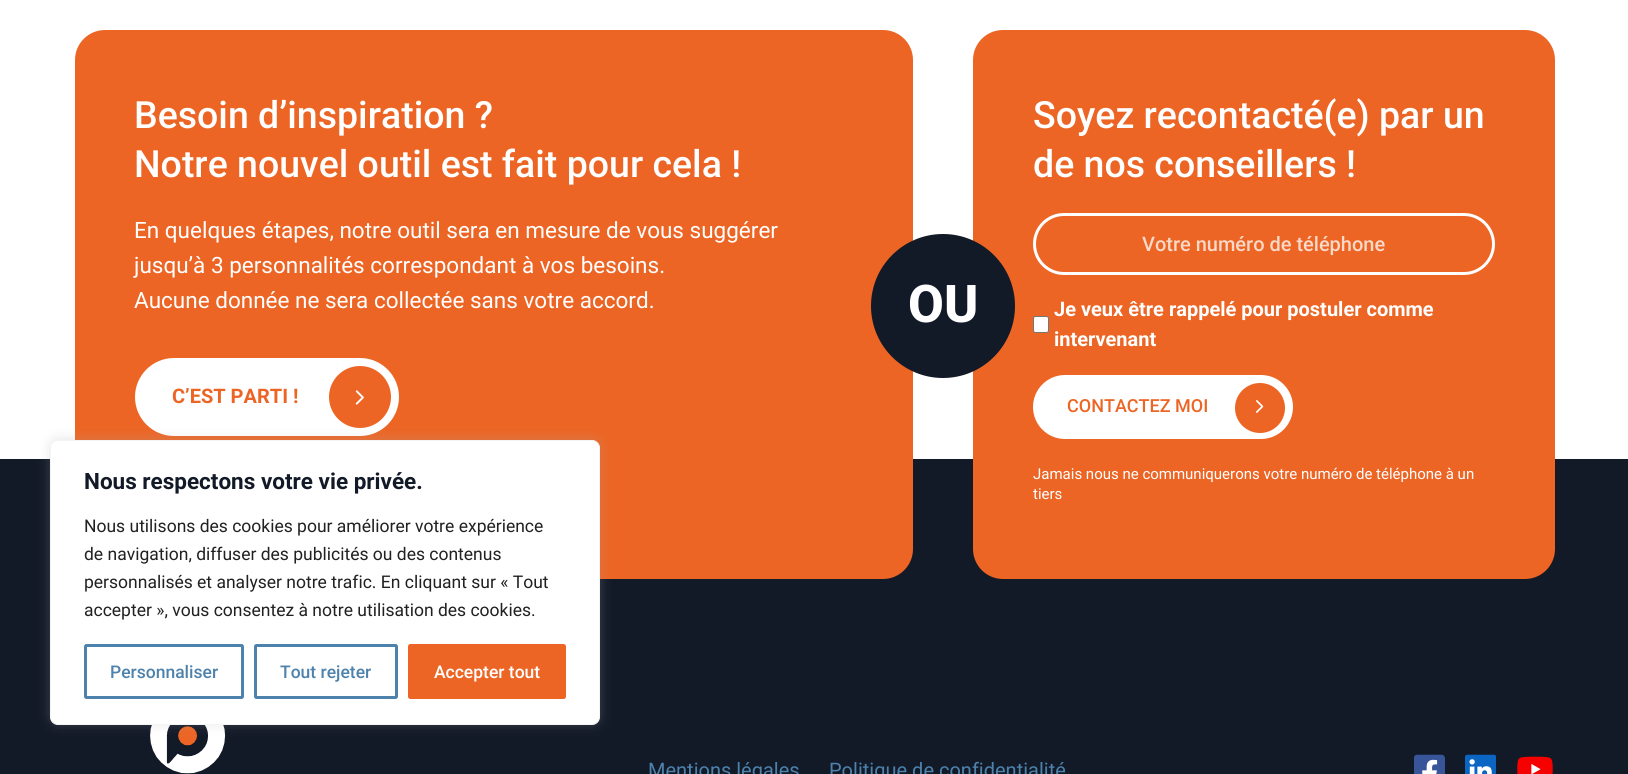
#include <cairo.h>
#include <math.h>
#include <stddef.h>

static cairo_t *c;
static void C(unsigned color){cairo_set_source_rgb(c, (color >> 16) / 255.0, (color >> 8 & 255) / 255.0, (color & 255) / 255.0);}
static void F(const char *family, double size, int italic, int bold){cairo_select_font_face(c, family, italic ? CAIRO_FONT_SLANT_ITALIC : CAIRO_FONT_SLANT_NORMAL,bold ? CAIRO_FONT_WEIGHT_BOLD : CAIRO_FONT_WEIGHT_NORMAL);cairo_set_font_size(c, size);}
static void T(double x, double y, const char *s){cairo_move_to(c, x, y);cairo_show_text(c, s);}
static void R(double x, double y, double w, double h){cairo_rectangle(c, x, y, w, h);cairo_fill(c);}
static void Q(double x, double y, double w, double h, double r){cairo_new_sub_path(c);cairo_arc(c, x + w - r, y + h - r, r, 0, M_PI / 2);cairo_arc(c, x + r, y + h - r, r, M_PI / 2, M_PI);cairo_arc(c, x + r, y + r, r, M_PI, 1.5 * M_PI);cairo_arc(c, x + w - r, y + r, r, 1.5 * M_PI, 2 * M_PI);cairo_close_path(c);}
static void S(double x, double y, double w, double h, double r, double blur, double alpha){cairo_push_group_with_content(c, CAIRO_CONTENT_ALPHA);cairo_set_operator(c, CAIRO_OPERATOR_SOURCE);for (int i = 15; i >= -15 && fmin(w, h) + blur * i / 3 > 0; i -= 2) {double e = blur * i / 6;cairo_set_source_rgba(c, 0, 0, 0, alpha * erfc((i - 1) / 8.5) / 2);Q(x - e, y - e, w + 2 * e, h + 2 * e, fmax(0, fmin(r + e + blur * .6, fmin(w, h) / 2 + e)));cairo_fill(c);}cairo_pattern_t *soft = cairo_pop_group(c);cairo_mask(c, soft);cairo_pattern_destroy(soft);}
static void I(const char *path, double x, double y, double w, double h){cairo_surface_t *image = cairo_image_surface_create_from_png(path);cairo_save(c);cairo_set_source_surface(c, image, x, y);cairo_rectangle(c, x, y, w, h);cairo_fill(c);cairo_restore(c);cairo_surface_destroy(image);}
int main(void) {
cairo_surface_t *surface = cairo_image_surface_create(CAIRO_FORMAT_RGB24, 1628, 774);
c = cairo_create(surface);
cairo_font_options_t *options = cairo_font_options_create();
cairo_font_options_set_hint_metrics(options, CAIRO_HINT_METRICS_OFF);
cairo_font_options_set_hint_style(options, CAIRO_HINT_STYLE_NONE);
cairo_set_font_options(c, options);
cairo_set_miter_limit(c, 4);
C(0xffffff);
cairo_paint(c);
C(0x121927);
R(0,459,1628,315);
C(0xec6524);
Q(75,30,838,549,30);
cairo_fill(c);
F("Roboto Medium",37.5,0,0);
C(0xffffff);
T(134,128,"Besoin d’inspiration ?");
T(134,177,"Notre nouvel outil est fait pour cela !");
F("Roboto",22.5,0,0);
T(134,238,"En quelques étapes, notre outil sera en mesure de vous suggérer");
T(134,273,"jusqu’à 3 personnalités correspondant à vos besoins.");
T(134,308,"Aucune donnée ne sera collectée sans votre accord.");
Q(135,358,264,78,39);
cairo_fill(c);
F("Roboto",20,0,1);
C(0xec6524);
T(172,403,"C’EST PARTI !");
cairo_new_path(c);
cairo_arc(c,360,397,31,0,2 * M_PI);
cairo_fill(c);
I("1.png",355,390,9,15);
Q(973,30,582,549,30);
cairo_fill(c);
F("Roboto Medium",37.5,0,0);
C(0xffffff);
T(1033,128,"Soyez recontacté(e) par un");
T(1033,177,"de nos conseillers !");
C(0x121927);
cairo_new_path(c);
cairo_arc(c,943,306,72,0,2 * M_PI);
cairo_fill(c);
F("Roboto ExtraBold",52,0,0);
C(0xffffff);
T(908,322,"OU");
Q(1034.5,214.5,459,59,29.5);
cairo_set_line_width(c,3);
cairo_stroke(c);
F("Roboto Medium",20,0,0);
C(0xfad9c8);
T(1142,251,"Votre numéro de téléphone");
C(0xffffff);
Q(1033.5,316.5,15,16,2);
cairo_fill_preserve(c);
C(0x767676);
cairo_set_line_width(c,1);
cairo_stroke(c);
F("Roboto",20,0,1);
C(0xffffff);
T(1054,316,"Je veux être rappelé pour postuler comme");
T(1054,346,"intervenant");
Q(1033,375,260,64,32);
cairo_fill(c);
F("Roboto Medium",18,0,0);
C(0xec6524);
T(1067,412,"CONTACTEZ MOI");
cairo_new_path(c);
cairo_arc(c,1260,408,25,0,2 * M_PI);
cairo_fill(c);
I("2.png",1256,400,8,13);
F("Roboto",15,0,0);
C(0xffffff);
T(1033,479,"Jamais nous ne communiquerons votre numéro de téléphone à un");
T(1033,499,"tiers");
I("3.png",150,725,76,49);
C(0xacabab);
S(50,439,550,285,8,6,.3);
C(0xffffff);
Q(50.5,440.5,549,284,7.5);
cairo_fill_preserve(c);
C(0xf4f4f4);
cairo_stroke(c);
F("Roboto",22.5,0,1);
C(0x121927);
T(84,489,"Nous respectons votre vie privée.");
F("Roboto",17.5,0,0);
C(0x212121);
T(84,532,"Nous utilisons des cookies pour améliorer votre expérience");
T(84,560,"de navigation, diffuser des publicités ou des contenus");
T(84,588,"personnalisés et analyser notre trafic. En cliquant sur « Tout");
T(84,616,"accepter », vous consentez à notre utilisation des cookies.");
Q(85.5,645.5,157,52,1);
C(0x4d82ad);
cairo_set_line_width(c,3);
cairo_stroke(c);
F("Roboto Medium",17.5,0,0);
T(110,678,"Personnaliser");
Q(255.5,645.5,141,52,1);
cairo_stroke(c);
T(280,678,"Tout rejeter");
C(0xec6524);
Q(409.5,645.5,155,52,1);
cairo_fill_preserve(c);
cairo_stroke(c);
C(0xffffff);
T(434,678,"Accepter tout");
F("Roboto",20,0,0);
C(0x4d82ad);
T(648,777,"Mentions légales");
T(829,777,"Politique de confidentialité");
I("4.png",1414,754,31,20);
I("5.png",1465,754,31,20);
I("6.png",1517,756,36,18);
cairo_surface_write_to_png(surface, "o.png");
cairo_font_options_destroy(options);
cairo_destroy(c);
cairo_surface_destroy(surface);
return 0;
}
